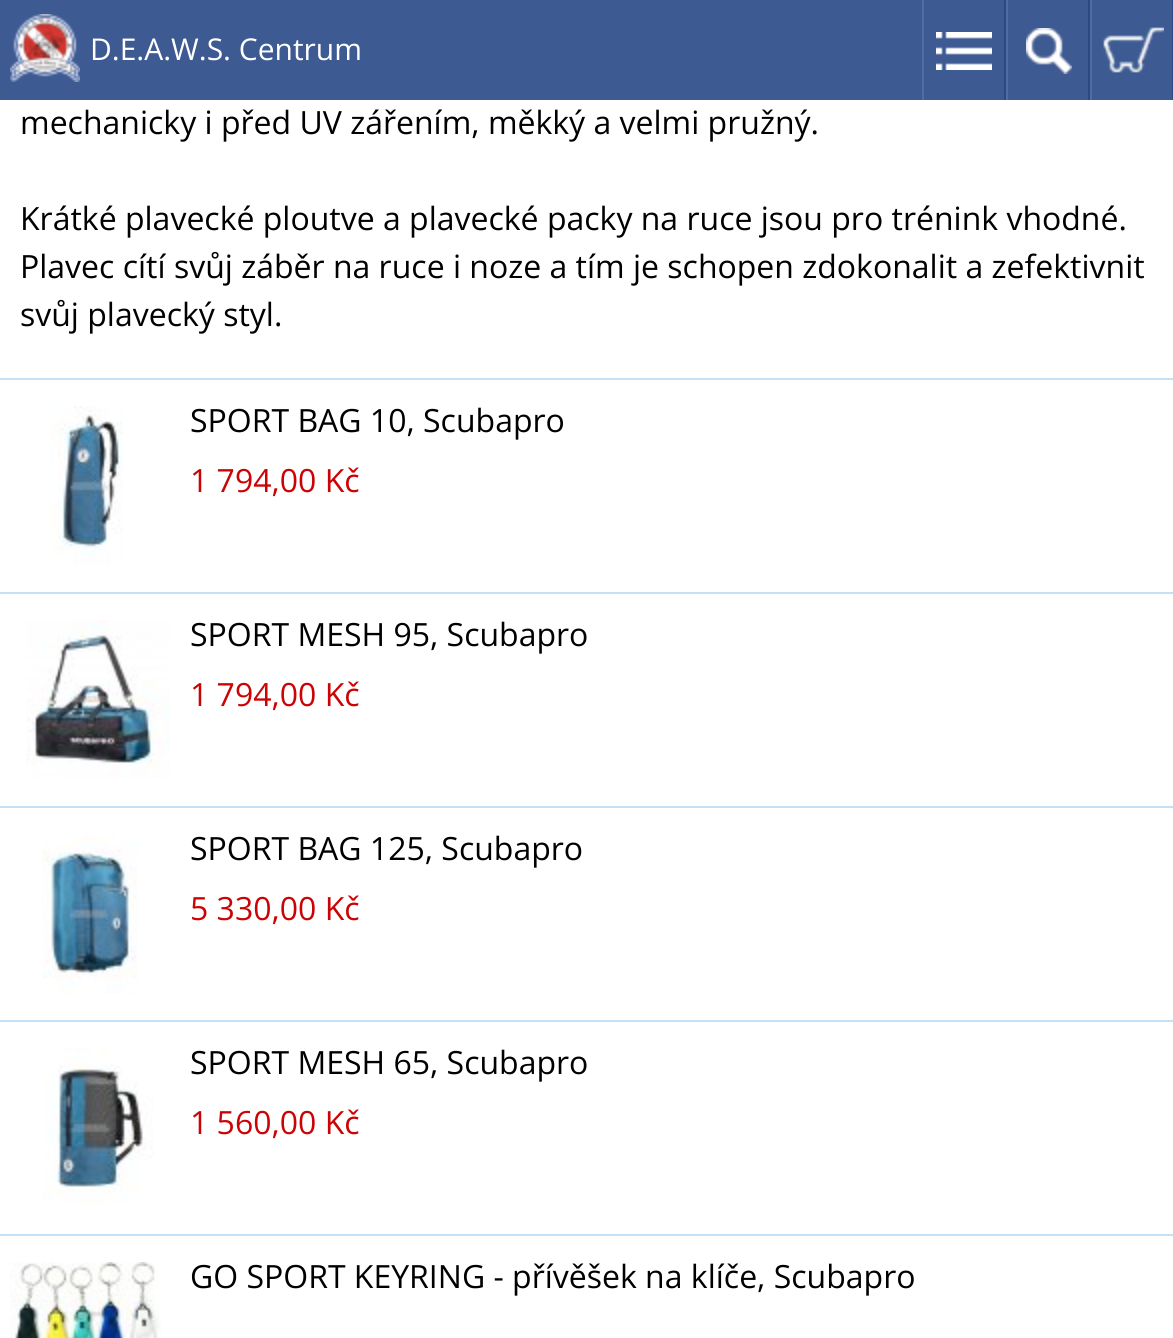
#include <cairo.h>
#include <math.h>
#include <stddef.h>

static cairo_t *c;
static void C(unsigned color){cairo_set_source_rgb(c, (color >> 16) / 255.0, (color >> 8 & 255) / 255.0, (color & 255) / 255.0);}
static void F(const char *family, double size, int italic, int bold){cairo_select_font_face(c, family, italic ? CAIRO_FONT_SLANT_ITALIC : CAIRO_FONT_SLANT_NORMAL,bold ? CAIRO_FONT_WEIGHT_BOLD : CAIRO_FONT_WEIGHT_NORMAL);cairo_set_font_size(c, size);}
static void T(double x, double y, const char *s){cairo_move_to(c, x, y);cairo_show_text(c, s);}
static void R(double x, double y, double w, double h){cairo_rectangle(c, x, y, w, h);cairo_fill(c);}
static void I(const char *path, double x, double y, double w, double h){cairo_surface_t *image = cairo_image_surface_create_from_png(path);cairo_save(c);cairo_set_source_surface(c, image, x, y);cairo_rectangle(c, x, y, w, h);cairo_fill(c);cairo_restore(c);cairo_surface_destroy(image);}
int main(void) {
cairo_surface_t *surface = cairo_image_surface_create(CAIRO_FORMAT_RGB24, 1173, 1338);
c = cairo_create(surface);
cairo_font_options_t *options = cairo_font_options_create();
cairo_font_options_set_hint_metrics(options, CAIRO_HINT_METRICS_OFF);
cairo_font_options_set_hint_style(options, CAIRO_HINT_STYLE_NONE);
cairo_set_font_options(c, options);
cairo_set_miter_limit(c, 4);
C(0xffffff);
cairo_paint(c);
C(0x3e5a92);
R(0,0,1172,100);
I("1.png",10,14,70,68);
F("Open Sans",30,0,0);
C(0xffffff);
T(90,60,"D.E.A.W.S. Centrum");
C(0x2d4981);
R(1004,0,2,100);
C(0x506ca4);
R(922,0,2,100);
I("2.png",936,32,56,38);
C(0x2d4981);
R(1088,0,2,100);
C(0x506ca4);
R(1006,0,2,100);
I("3.png",1026,28,46,46);
C(0x2d4981);
R(1172,0,1,100);
C(0x506ca4);
R(1090,0,2,100);
I("4.png",1103,27,61,46);
F("Open Sans",32,0,0);
C(0x000000);
T(20,134,"mechanicky i před UV zářením, měkký a velmi pružný.");
T(20,230,"Krátké plavecké ploutve a plavecké packy na ruce jsou pro trénink vhodné.");
T(20,278,"Plavec cítí svůj záběr na ruce i noze a tím je schopen zdokonalit a zefektivnit");
T(20,326,"svůj plavecký styl.");
C(0xc3e1f6);
R(0,378,1173,2);
I("5.png",50,406,73,160);
C(0x000000);
T(190,432,"SPORT BAG 10, Scubapro");
C(0xcc0304);
T(190,492,"1 794,00 Kč");
C(0xc3e1f6);
R(0,592,1173,2);
I("6.png",26,620,144,158);
C(0x000000);
T(190,646,"SPORT MESH 95, Scubapro");
C(0xcc0304);
T(190,706,"1 794,00 Kč");
C(0xc3e1f6);
R(0,806,1173,2);
I("7.png",42,834,96,160);
C(0x000000);
T(190,860,"SPORT BAG 125, Scubapro");
C(0xcc0304);
T(190,920,"5 330,00 Kč");
C(0xc3e1f6);
R(0,1020,1173,2);
I("8.png",43,1048,111,155);
C(0x000000);
T(190,1074,"SPORT MESH 65, Scubapro");
C(0xcc0304);
T(190,1134,"1 560,00 Kč");
C(0xc3e1f6);
R(0,1234,1173,2);
I("9.png",10,1262,151,76);
C(0x000000);
T(190,1288,"GO SPORT KEYRING - přívěšek na klíče, Scubapro");
cairo_surface_write_to_png(surface, "o.png");
cairo_font_options_destroy(options);
cairo_destroy(c);
cairo_surface_destroy(surface);
return 0;
}
